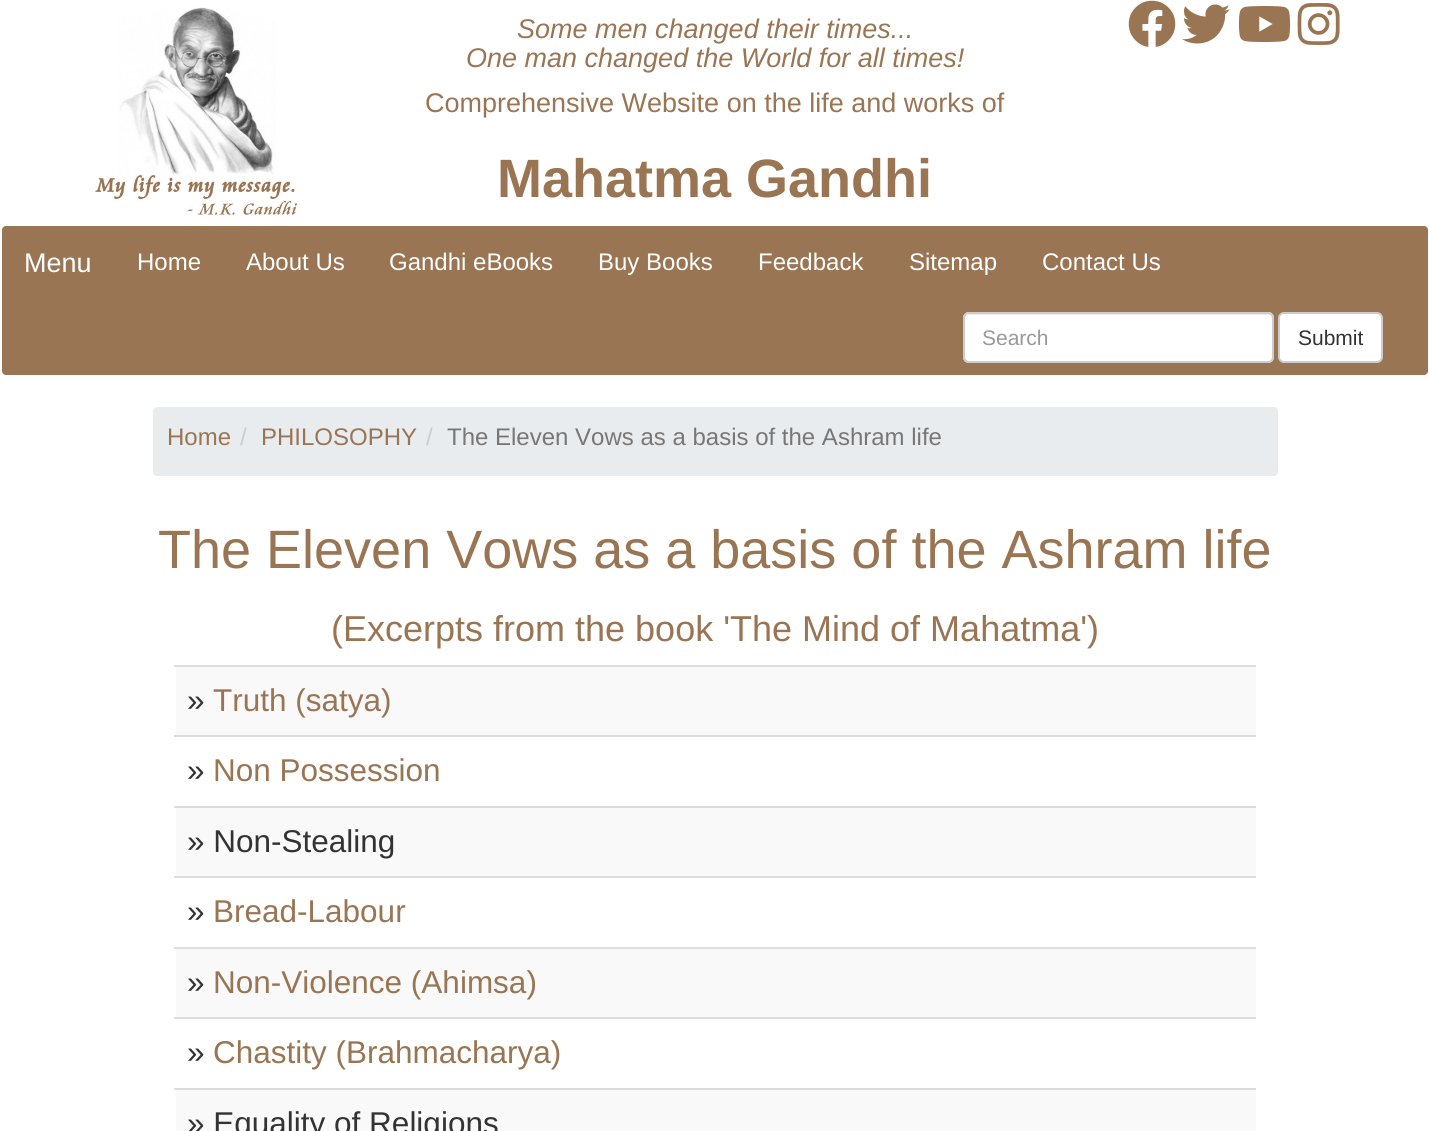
#include <cairo.h>
#include <math.h>
#include <stddef.h>

static cairo_t *c;
static void C(unsigned color){cairo_set_source_rgb(c, (color >> 16) / 255.0, (color >> 8 & 255) / 255.0, (color & 255) / 255.0);}
static void F(const char *family, double size, int italic, int bold){cairo_select_font_face(c, family, italic ? CAIRO_FONT_SLANT_ITALIC : CAIRO_FONT_SLANT_NORMAL,bold ? CAIRO_FONT_WEIGHT_BOLD : CAIRO_FONT_WEIGHT_NORMAL);cairo_set_font_size(c, size);}
static void T(double x, double y, const char *s){cairo_move_to(c, x, y);cairo_show_text(c, s);}
static void R(double x, double y, double w, double h){cairo_rectangle(c, x, y, w, h);cairo_fill(c);}
static void Q(double x, double y, double w, double h, double r){cairo_new_sub_path(c);cairo_arc(c, x + w - r, y + h - r, r, 0, M_PI / 2);cairo_arc(c, x + r, y + h - r, r, M_PI / 2, M_PI);cairo_arc(c, x + r, y + r, r, M_PI, 1.5 * M_PI);cairo_arc(c, x + w - r, y + r, r, 1.5 * M_PI, 2 * M_PI);cairo_close_path(c);}
static void I(const char *path, double x, double y, double w, double h){cairo_surface_t *image = cairo_image_surface_create_from_png(path);cairo_save(c);cairo_set_source_surface(c, image, x, y);cairo_rectangle(c, x, y, w, h);cairo_fill(c);cairo_restore(c);cairo_surface_destroy(image);}
int main(void) {
cairo_surface_t *surface = cairo_image_surface_create(CAIRO_FORMAT_RGB24, 1429, 1131);
c = cairo_create(surface);
cairo_font_options_t *options = cairo_font_options_create();
cairo_font_options_set_hint_metrics(options, CAIRO_HINT_METRICS_OFF);
cairo_font_options_set_hint_style(options, CAIRO_HINT_STYLE_NONE);
cairo_set_font_options(c, options);
cairo_set_miter_limit(c, 4);
C(0xffffff);
cairo_paint(c);
I("1.png",94,7,206,208);
F("Liberation Sans",27,1,0);
C(0x997553);
T(517,38,"Some men changed their times...");
T(466,67,"One man changed the World for all times!");
F("Liberation Sans",27,0,0);
T(425,112,"Comprehensive Website on the life and works of");
F("Liberation Sans",54,0,1);
T(497,197,"Mahatma Gandhi");
I("2.png",1128,0,48,47);
I("3.png",1182,4,48,40);
I("4.png",1238,6,53,36);
I("5.png",1297,3,43,42);
Q(1,225,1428,151,5);
cairo_fill_preserve(c);
C(0xffffff);
cairo_stroke(c);
F("Liberation Sans",27,0,0);
T(24,272,"Menu");
F("Liberation Sans",24,0,0);
T(137,270,"Home");
T(246,270,"About Us");
T(389,270,"Gandhi eBooks");
T(598,270,"Buy Books");
T(758,270,"Feedback");
T(909,270,"Sitemap");
T(1042,270,"Contact Us");
Q(963,312,311,51,6);
cairo_fill(c);
C(0xececec);
cairo_new_path(c);
cairo_move_to(c,969,315);
cairo_line_to(c,1268,315);
cairo_curve_to(c,1270,315,1272,317,1272,320);
cairo_line_to(c,1272,319);
cairo_curve_to(c,1272,316,1270,314,1267,314);
cairo_line_to(c,970,314);
cairo_curve_to(c,968,314,967,315,966,316);
cairo_close_path(c);
cairo_fill(c);
Q(964,313,309,49,5);
C(0xcccccc);
cairo_stroke(c);
F("Liberation Sans",21,0,0);
C(0x999999);
T(982,345,"Search");
C(0xffffff);
Q(1279,313,103,49,5);
cairo_fill_preserve(c);
C(0xcccccc);
cairo_stroke(c);
C(0x333333);
T(1298,345,"Submit");
C(0xe9ecef);
Q(153,407,1125,69,4);
cairo_fill(c);
F("Liberation Sans",24,0,0);
C(0x997553);
T(167,445,"Home");
C(0xcccccc);
T(240,445,"/");
C(0x997553);
T(261,445,"PHILOSOPHY");
C(0xcccccc);
T(426,445,"/");
C(0x777777);
T(447,445,"The Eleven Vows as a basis of the Ashram life");
F("Liberation Sans",54,0,0);
C(0x997553);
T(158,568,"The Eleven Vows as a basis of the Ashram life");
F("Liberation Sans",36,0,0);
T(331,641,"(Excerpts from the book 'The Mind of Mahatma')");
C(0xf9f9f9);
R(176,667,1080,68);
C(0xdddddd);
R(174,665,1082,2);
F("Liberation Sans",31.5,0,0);
C(0x333333);
T(187,711,"»");
C(0x997553);
T(213,711,"Truth (satya)");
C(0xdddddd);
R(174,735,1082,2);
C(0x333333);
T(187,781,"»");
C(0x997553);
T(213,781,"Non Possession");
C(0xf9f9f9);
R(176,808,1080,68);
C(0xdddddd);
R(174,806,1082,2);
C(0x333333);
T(187,852,"» Non-Stealing");
C(0xdddddd);
R(174,876,1082,2);
C(0x333333);
T(187,922,"»");
C(0x997553);
T(213,922,"Bread-Labour");
C(0xf9f9f9);
R(176,949,1080,68);
C(0xdddddd);
R(174,947,1082,2);
C(0x333333);
T(187,993,"»");
C(0x997553);
T(213,993,"Non-Violence (Ahimsa)");
C(0xdddddd);
R(174,1017,1082,2);
C(0x333333);
T(187,1063,"»");
C(0x997553);
T(213,1063,"Chastity (Brahmacharya)");
C(0xf9f9f9);
R(176,1090,1080,41);
C(0xdddddd);
R(174,1088,1082,2);
C(0x333333);
T(187,1134,"» Equality of Religions");
cairo_surface_write_to_png(surface, "o.png");
cairo_font_options_destroy(options);
cairo_destroy(c);
cairo_surface_destroy(surface);
return 0;
}
